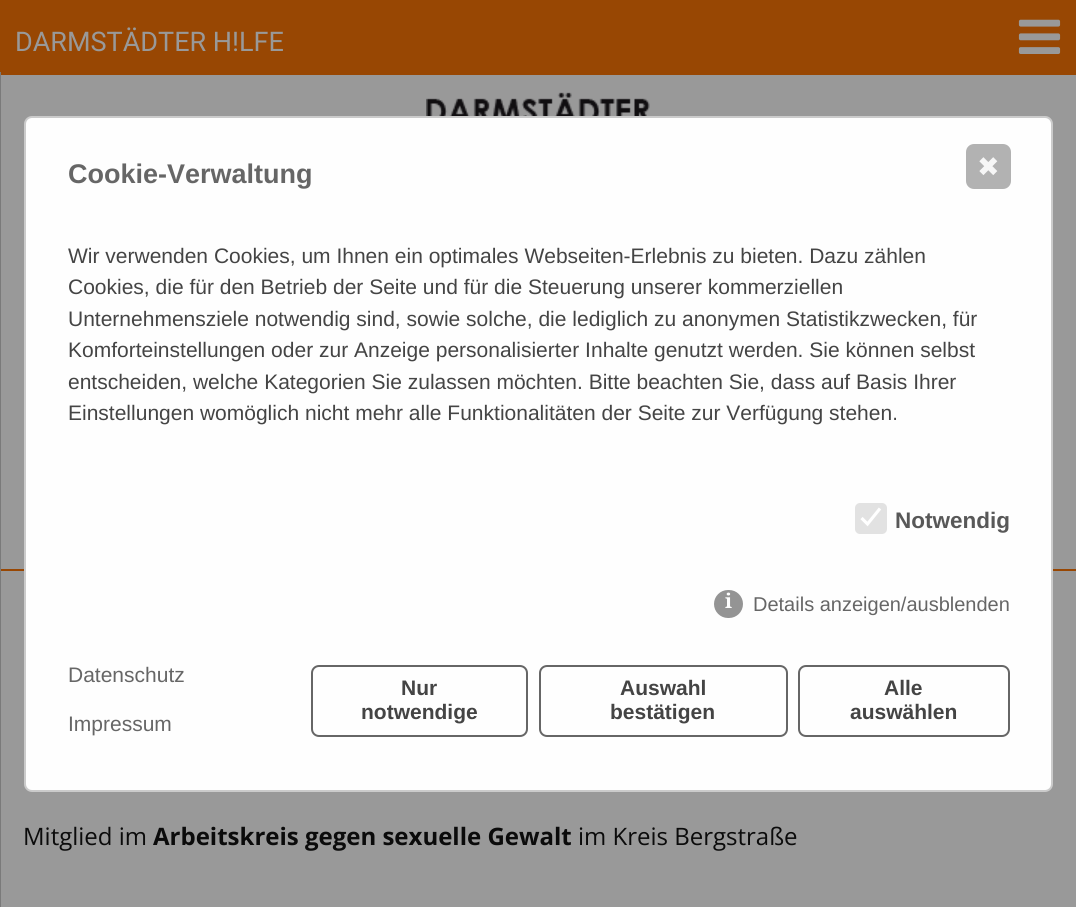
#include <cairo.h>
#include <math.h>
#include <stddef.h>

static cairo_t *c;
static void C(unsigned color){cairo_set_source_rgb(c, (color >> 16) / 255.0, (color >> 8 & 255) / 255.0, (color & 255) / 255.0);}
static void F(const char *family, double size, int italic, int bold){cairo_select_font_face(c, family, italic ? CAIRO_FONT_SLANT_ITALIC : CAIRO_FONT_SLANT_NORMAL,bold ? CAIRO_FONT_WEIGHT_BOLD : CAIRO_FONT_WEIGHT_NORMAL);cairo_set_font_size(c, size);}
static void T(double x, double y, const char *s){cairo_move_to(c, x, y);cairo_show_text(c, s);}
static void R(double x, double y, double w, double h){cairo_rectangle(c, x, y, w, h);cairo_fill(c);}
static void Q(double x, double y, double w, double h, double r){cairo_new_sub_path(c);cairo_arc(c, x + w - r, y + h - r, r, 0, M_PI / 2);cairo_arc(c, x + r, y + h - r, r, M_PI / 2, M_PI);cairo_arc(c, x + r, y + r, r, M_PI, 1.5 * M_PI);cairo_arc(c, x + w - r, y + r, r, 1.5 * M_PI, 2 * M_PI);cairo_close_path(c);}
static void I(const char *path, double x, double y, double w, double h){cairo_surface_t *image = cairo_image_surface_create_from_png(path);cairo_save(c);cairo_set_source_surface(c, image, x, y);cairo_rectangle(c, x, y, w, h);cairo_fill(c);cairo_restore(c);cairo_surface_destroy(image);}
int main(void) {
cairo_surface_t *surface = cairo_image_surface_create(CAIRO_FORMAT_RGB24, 1076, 907);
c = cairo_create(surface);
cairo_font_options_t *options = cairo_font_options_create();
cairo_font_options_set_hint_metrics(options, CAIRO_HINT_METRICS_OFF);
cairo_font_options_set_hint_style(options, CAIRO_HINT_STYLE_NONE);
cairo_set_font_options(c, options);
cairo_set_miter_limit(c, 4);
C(0x999999);
cairo_paint(c);
C(0x984703);
R(0,569,1076,2);
R(0,0,1076,75);
F("Roboto",27,0,0);
C(0x999999);
T(15,51,"DARMSTÄDTER H!LFE");
I("1.png",1018,19,43,35);
C(0x7a7a7a);
R(0,72,1,835);
I("2.png",426,92,224,24);
C(0xfefefe);
Q(25,117,1027,674,7);
cairo_fill_preserve(c);
C(0xcbcbcb);
cairo_stroke(c);
C(0xb2b2b2);
Q(967,145,43,43,7);
cairo_fill_preserve(c);
cairo_stroke(c);
F("DejaVu Sans",27,0,0);
C(0xf6f6f6);
T(977,176,"✖");
F("Liberation Sans",27,0,1);
C(0x666666);
T(68,183,"Cookie-Verwaltung");
F("Liberation Sans",21,0,0);
C(0x444444);
T(68,263,"Wir verwenden Cookies, um Ihnen ein optimales Webseiten-Erlebnis zu bieten. Dazu zählen");
T(68,294,"Cookies, die für den Betrieb der Seite und für die Steuerung unserer kommerziellen");
T(68,326,"Unternehmensziele notwendig sind, sowie solche, die lediglich zu anonymen Statistikzwecken, für");
T(68,357,"Komforteinstellungen oder zur Anzeige personalisierter Inhalte genutzt werden. Sie können selbst");
T(68,389,"entscheiden, welche Kategorien Sie zulassen möchten. Bitte beachten Sie, dass auf Basis Ihrer");
T(68,420,"Einstellungen womöglich nicht mehr alle Funktionalitäten der Seite zur Verfügung stehen.");
C(0xe2e2e2);
Q(855,503,32,31,5);
cairo_fill(c);
cairo_new_path(c);
cairo_move_to(c,861.5,518);
cairo_line_to(c,867.5,524);
cairo_line_to(c,880,508.5);
C(0xffffff);
cairo_set_line_width(c,3.1);
cairo_stroke(c);
F("Liberation Sans",22.5,0,1);
C(0x585858);
T(895,528,"Notwendig");
C(0x949494);
Q(714,590,29,28,14);
cairo_fill(c);
F("Noto Serif",20,0,1);
C(0xfefefe);
T(725,608,"i");
F("Liberation Sans",20,0,0);
C(0x666666);
T(753,611,"Details anzeigen/ausblenden");
F("Liberation Sans",21,0,0);
T(68,682,"Datenschutz");
T(68,731,"Impressum");
Q(312,666,215,70,7);
cairo_set_line_width(c,2);
cairo_stroke(c);
F("Liberation Sans",21,0,1);
C(0x444444);
T(401,695,"Nur");
T(361,719,"notwendige");
Q(540,666,247,70,7);
C(0x666666);
cairo_stroke(c);
C(0x444444);
T(620,695,"Auswahl");
T(610,719,"bestätigen");
Q(799,666,210,70,7);
C(0x666666);
cairo_stroke(c);
C(0x444444);
T(884,695,"Alle");
T(850,719,"auswählen");
F("Open Sans",24,0,0);
C(0x0b0b0b);
T(23,845,"Mitglied im");
F("Open Sans",24,0,1);
T(153,845,"Arbeitskreis gegen sexuelle Gewalt");
F("Open Sans",24,0,0);
T(578,845,"im Kreis Bergstraße");
cairo_surface_write_to_png(surface, "o.png");
cairo_font_options_destroy(options);
cairo_destroy(c);
cairo_surface_destroy(surface);
return 0;
}
